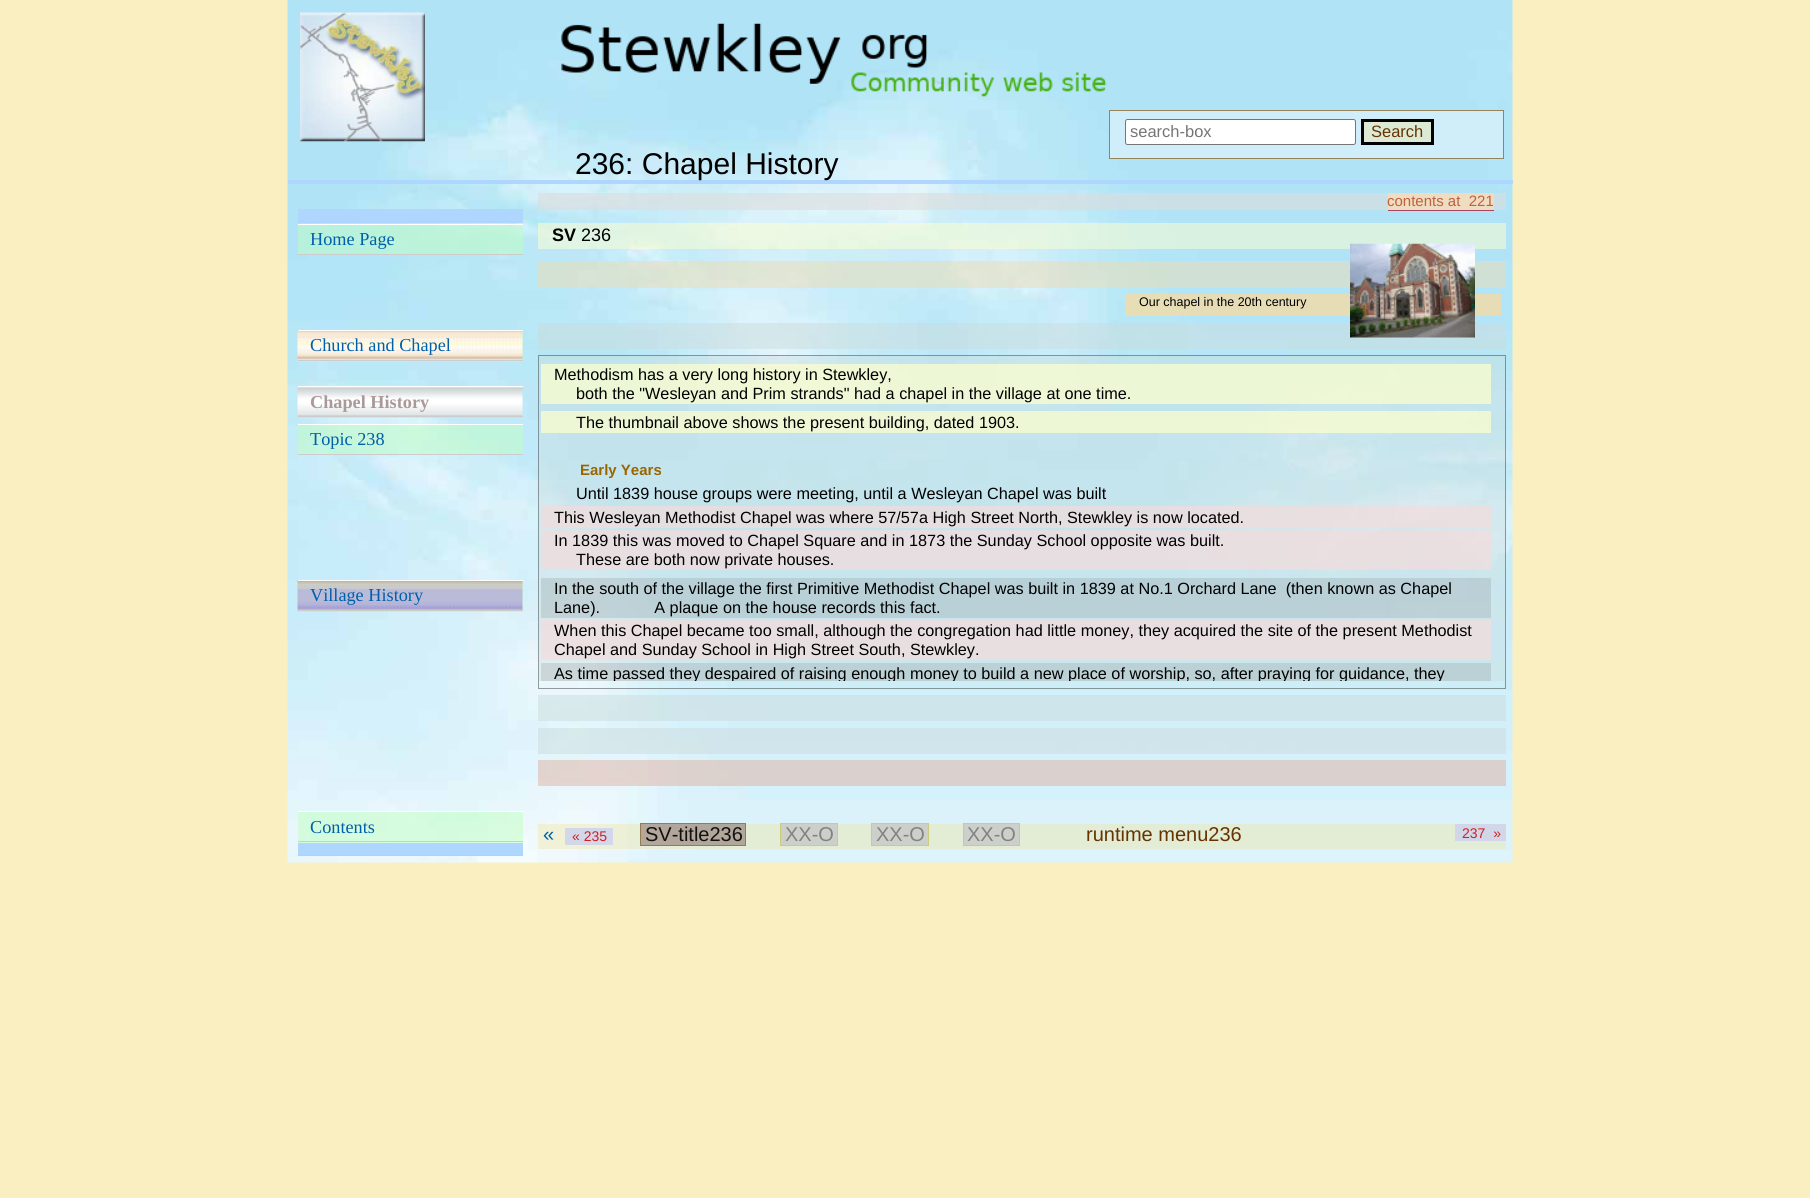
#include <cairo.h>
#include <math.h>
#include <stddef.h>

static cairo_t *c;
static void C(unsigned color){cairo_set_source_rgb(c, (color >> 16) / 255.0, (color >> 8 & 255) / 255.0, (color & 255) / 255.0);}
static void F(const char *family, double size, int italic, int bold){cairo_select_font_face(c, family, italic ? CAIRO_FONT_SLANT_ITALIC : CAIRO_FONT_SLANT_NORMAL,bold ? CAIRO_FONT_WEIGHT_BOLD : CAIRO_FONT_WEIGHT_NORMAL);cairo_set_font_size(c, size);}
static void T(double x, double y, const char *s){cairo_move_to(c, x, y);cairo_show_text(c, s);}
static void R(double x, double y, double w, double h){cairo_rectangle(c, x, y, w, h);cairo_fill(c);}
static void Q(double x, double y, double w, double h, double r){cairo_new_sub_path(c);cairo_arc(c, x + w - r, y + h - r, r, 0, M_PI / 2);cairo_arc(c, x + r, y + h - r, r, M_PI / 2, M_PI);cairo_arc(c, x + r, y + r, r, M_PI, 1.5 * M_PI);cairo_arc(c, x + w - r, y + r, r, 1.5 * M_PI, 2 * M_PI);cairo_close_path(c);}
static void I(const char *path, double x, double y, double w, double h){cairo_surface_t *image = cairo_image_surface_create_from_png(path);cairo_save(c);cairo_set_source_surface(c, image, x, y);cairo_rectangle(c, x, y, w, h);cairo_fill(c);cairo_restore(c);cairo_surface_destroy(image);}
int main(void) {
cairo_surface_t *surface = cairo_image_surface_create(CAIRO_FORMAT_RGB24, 1810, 1198);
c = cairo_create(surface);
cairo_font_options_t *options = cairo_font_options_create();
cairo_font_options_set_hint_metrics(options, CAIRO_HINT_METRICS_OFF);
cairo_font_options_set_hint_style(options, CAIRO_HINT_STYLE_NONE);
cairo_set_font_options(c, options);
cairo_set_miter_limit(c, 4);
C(0xfaefc0);
cairo_paint(c);
I("1.png",287,0,1226,863);
C(0xd0eefa);
cairo_rectangle(c,1109.5,110.5,394,48);
cairo_fill_preserve(c);
C(0x96845b);
cairo_set_line_width(c,1);
cairo_stroke(c);
C(0xffffff);
Q(1125.5,119.5,230,25,2);
cairo_fill_preserve(c);
C(0x767676);
cairo_stroke(c);
F("Liberation Sans",16.5,0,0);
C(0x757575);
T(1130,137,"search-box");
C(0xdbe9d5);
cairo_rectangle(c,1362.5,120.5,70,23);
cairo_fill_preserve(c);
C(0x000000);
cairo_set_line_width(c,3);
cairo_stroke(c);
C(0x663300);
T(1371,137,"Search");
I("2.png",300,12,125,130);
I("3.png",561,23,546,74);
C(0xafd6ff);
R(288,180,1225,4);
F("Liberation Sans",30,0,0);
C(0x000000);
T(575,174,"236: Chapel History");
C(0xafd6ff);
R(298,209,225,14);
C(0xcccccc);
R(298,221,225,1);
cairo_set_source_rgba(c,0.753,1,0.753,0.5);
R(298,225,225,29);
C(0xffffff);
R(298,224,225,1);
C(0xcccccc);
R(298,254,225,1);
F("Liberation Serif",18.25,0,0);
C(0x005fa9);
T(310,245,"Home Page");
cairo_set_source_rgba(c,0.753,1,0.753,0.5);
R(522,331,1,29);
I("4.png",297,330,226,32);
C(0xffffff);
R(298,330,225,1);
C(0xcccccc);
R(298,360,225,1);
C(0x005fa9);
T(310,351,"Church and Chapel");
I("5.png",297,386,226,32);
C(0xffffff);
R(298,386,225,1);
C(0xcccccc);
R(298,416,225,1);
F("Liberation Serif",18.25,0,1);
C(0xaa9999);
T(310,408,"Chapel History");
cairo_set_source_rgba(c,0.753,1,0.753,0.5);
R(298,425,225,29);
C(0xffffff);
R(298,424,225,1);
C(0xcccccc);
R(298,454,225,1);
F("Liberation Serif",18.25,0,0);
C(0x005fa9);
T(310,445,"Topic 238");
cairo_set_source_rgba(c,0.753,1,0.753,0.5);
R(522,581,1,29);
I("6.png",297,580,226,32);
C(0xffffff);
R(298,580,225,1);
C(0xcccccc);
R(298,610,225,1);
C(0x005fa9);
T(310,601,"Village History");
cairo_set_source_rgba(c,0.753,1,0.753,0.5);
R(298,812,225,31);
C(0xffffff);
R(298,811,225,1);
C(0xcccccc);
R(298,841,225,1);
C(0x005fa9);
T(310,833,"Contents");
C(0xafd6ff);
R(298,843,225,12);
C(0xcccccc);
R(298,855,225,1);
cairo_set_source_rgba(c,0.863,0.863,0.863,0.6);
R(538,193,968,17);
C(0xeeddc0);
R(1388,193,106,17);
C(0xaa4466);
R(1388,210,106,1);
F("Liberation Sans",15,0,0);
C(0xc06040);
T(1387,206,"contents at  221");
cairo_set_source_rgba(c,1,1,0.8,0.5);
R(538,223,968,26);
F("Liberation Sans",18,0,1);
C(0x000000);
T(552,241,"SV");
F("Liberation Sans",18,0,0);
T(581,241,"236");
cairo_set_source_rgba(c,0.933,0.867,0.69,0.5);
R(538,261,968,27);
cairo_set_source_rgba(c,0.925,0.867,0.69,0.9);
R(1125,294,376,22);
cairo_set_source_rgba(c,0.8,0.867,0.867,0.5);
R(538,323,968,26);
I("7.png",1350,243,125,95);
F("Liberation Sans",12.5,0,0);
C(0x000000);
T(1139,306,"Our chapel in the 20th century");
cairo_rectangle(c,538.5,355.5,967,333);
cairo_set_source_rgba(c,0.235,0.235,0.235,0.5);
cairo_set_line_width(c,1);
cairo_stroke(c);
cairo_set_source_rgba(c,0.8,0.867,0.867,0.4);
R(539,356,966,325);
cairo_set_source_rgba(c,1,1,0.8,0.7);
R(541,364,950,40);
F("Liberation Sans",16.25,0,0);
C(0x000000);
T(554,380,"Methodism has a very long history in Stewkley,");
T(576,399,"both the \"Wesleyan and Prim strands\" had a chapel in the village at one time.");
cairo_set_source_rgba(c,1,1,0.8,0.7);
R(541,411,950,22);
C(0x000000);
T(576,428,"The thumbnail above shows the present building, dated 1903.");
F("Liberation Sans",15,0,1);
C(0x996600);
T(580,475,"Early Years");
F("Liberation Sans",16.25,0,0);
C(0x000000);
T(576,499,"Until 1839 house groups were meeting, until a Wesleyan Chapel was built");
cairo_set_source_rgba(c,0.957,0.863,0.863,0.7);
R(541,506,950,22);
C(0x000000);
T(554,523,"This Wesleyan Methodist Chapel was where 57/57a High Street North, Stewkley is now located.");
cairo_set_source_rgba(c,0.957,0.863,0.863,0.7);
R(541,530,950,40);
C(0x000000);
T(554,546,"In 1839 this was moved to Chapel Square and in 1873 the Sunday School opposite was built.");
T(576,565,"These are both now private houses.");
cairo_set_source_rgba(c,0.471,0.471,0.471,0.2);
R(541,578,950,40);
C(0x000000);
T(554,594,"In the south of the village the first Primitive Methodist Chapel was built in 1839 at No.1 Orchard Lane  (then known as Chapel");
T(554,613,"Lane).            A plaque on the house records this fact.");
cairo_set_source_rgba(c,0.957,0.863,0.863,0.7);
R(541,620,950,40);
C(0x000000);
T(554,636,"When this Chapel became too small, although the congregation had little money, they acquired the site of the present Methodist");
T(554,655,"Chapel and Sunday School in High Street South, Stewkley.");
cairo_set_source_rgba(c,0.471,0.471,0.471,0.2);
R(541,663,950,18);
cairo_save(c);
cairo_rectangle(c,539,356,966,325);
cairo_clip(c);
C(0x000000);
T(554,679,"As time passed they despaired of raising enough money to build a new place of worship, so, after praying for guidance, they");
cairo_restore(c);
cairo_set_source_rgba(c,0.8,0.867,0.867,0.5);
R(538,695,968,26);
R(538,728,968,26);
cairo_set_source_rgba(c,0.878,0.69,0.627,0.5);
R(538,760,968,26);
cairo_set_source_rgba(c,0.961,0.871,0.502,0.3);
R(538,824,968,25);
F("Liberation Sans",20,0,0);
C(0x005fa9);
T(543,841,"«");
cairo_set_source_rgba(c,0.8,0.816,0.933,0.8);
R(565,828,48,17);
F("Liberation Sans",14,0,0);
C(0xd02020);
T(572,841,"« 235");
cairo_set_source_rgba(c,0.502,0.376,0.376,0.5);
R(640,823,106,23);
cairo_rectangle(c,640.5,823.5,105,22);
cairo_set_source_rgba(c,0.565,0.471,0.286,0.9);
cairo_stroke(c);
F("Liberation Sans",20,0,0);
C(0x111111);
T(645,841,"SV-title236");
cairo_set_source_rgba(c,0.784,0.784,0.784,0.8);
R(780,823,58,23);
cairo_rectangle(c,780.5,823.5,57,22);
cairo_set_source_rgba(c,0.8,0.8,0.286,0.6);
cairo_stroke(c);
C(0x828381);
T(785,841,"XX-O");
cairo_set_source_rgba(c,0.784,0.784,0.784,0.8);
R(871,823,58,23);
cairo_rectangle(c,871.5,823.5,57,22);
cairo_set_source_rgba(c,0.8,0.8,0.286,0.6);
cairo_stroke(c);
C(0x828381);
T(876,841,"XX-O");
cairo_set_source_rgba(c,0.784,0.784,0.784,0.8);
R(963,823,57,23);
cairo_rectangle(c,963.5,823.5,56,22);
cairo_set_source_rgba(c,0.8,0.8,0.286,0.6);
cairo_stroke(c);
C(0x828381);
T(967,841,"XX-O");
C(0x663300);
T(1086,841,"runtime menu236");
C(0xd1d6e9);
R(1455,824,51,17);
F("Liberation Sans",14,0,0);
C(0xd02020);
T(1462,838,"237  »");
cairo_surface_write_to_png(surface, "o.png");
cairo_font_options_destroy(options);
cairo_destroy(c);
cairo_surface_destroy(surface);
return 0;
}
